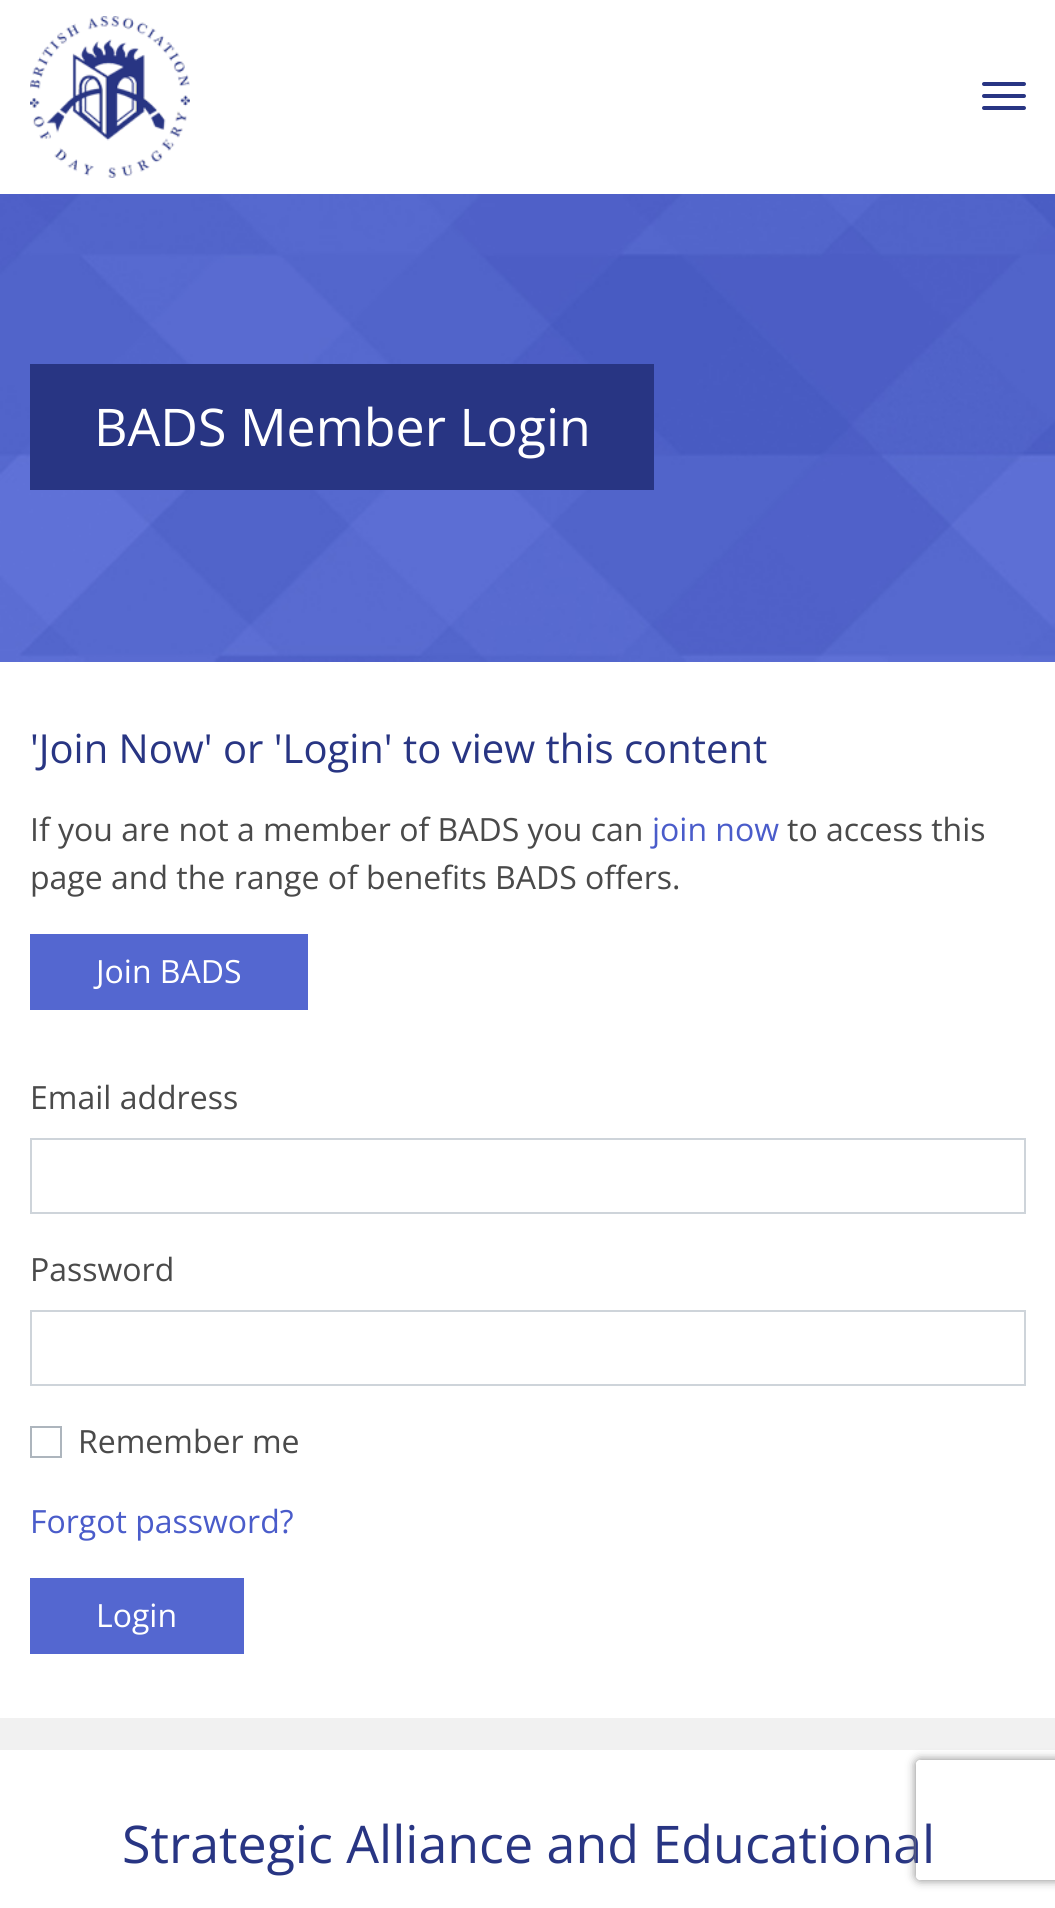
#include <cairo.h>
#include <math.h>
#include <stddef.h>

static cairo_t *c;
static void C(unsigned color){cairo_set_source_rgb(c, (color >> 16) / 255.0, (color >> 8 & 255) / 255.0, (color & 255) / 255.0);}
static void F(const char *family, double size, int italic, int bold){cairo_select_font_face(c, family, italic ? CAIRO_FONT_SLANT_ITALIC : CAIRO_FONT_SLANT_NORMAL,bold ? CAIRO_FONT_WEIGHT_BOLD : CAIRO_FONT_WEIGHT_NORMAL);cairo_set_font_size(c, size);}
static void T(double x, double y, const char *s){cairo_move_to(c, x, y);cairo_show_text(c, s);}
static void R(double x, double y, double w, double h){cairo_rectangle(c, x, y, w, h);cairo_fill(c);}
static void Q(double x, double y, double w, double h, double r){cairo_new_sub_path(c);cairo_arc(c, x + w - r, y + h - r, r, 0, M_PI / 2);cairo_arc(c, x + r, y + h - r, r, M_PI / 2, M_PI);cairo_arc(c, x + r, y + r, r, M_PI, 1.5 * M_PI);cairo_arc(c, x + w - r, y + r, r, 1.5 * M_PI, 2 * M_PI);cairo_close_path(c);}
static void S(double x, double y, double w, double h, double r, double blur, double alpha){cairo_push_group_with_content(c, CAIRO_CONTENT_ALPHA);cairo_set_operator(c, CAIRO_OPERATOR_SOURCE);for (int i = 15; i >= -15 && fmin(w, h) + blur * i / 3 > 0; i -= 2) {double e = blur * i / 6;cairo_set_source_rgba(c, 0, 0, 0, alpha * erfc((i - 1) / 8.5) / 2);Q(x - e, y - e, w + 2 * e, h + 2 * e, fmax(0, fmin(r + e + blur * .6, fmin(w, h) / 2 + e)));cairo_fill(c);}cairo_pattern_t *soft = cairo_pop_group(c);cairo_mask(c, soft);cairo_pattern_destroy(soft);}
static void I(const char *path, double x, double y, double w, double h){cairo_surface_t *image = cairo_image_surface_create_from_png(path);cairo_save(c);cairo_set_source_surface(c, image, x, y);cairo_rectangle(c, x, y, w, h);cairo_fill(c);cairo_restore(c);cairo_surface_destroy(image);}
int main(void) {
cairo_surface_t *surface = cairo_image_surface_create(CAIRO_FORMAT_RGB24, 1055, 1908);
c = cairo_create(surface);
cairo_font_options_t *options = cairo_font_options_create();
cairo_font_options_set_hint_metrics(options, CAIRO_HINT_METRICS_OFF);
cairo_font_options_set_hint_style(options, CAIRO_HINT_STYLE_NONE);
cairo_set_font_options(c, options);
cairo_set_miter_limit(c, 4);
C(0xf1f1f1);
cairo_paint(c);
C(0xffffff);
R(0,0,1055,194);
I("1.png",30,16,160,162);
C(0x283583);
Q(982,82,44,4,2);
cairo_fill(c);
Q(982,94,44,4,2);
cairo_fill(c);
Q(982,106,44,4,2);
cairo_fill(c);
I("2.png",0,194,1055,468);
R(30,364,624,126);
F("Open Sans",51.9,0,0);
C(0xffffff);
T(94,446,"BADS Member Login");
R(0,662,1055,1056);
F("Open Sans",40,0,0);
C(0x283583);
T(30,763,"'Join Now' or 'Login' to view this content");
F("Open Sans",32,0,0);
C(0x4a4a4a);
T(30,841,"If you are not a member of BADS you can");
C(0x4a5cca);
T(652,841,"join now");
C(0x4a4a4a);
T(787,841,"to access this");
T(30,889,"page and the range of benefits BADS offers.");
C(0x5467d0);
R(30,934,278,76);
C(0xffffff);
T(96,983,"Join BADS");
C(0x4a4a4a);
T(30,1109,"Email address");
cairo_rectangle(c,31,1139,994,74);
C(0xced4da);
cairo_stroke(c);
C(0x4a4a4a);
T(30,1281,"Password");
cairo_rectangle(c,31,1311,994,74);
C(0xced4da);
cairo_stroke(c);
cairo_rectangle(c,31,1427,30,30);
C(0xadb5bd);
cairo_stroke(c);
C(0x4a4a4a);
T(78,1453,"Remember me");
C(0x4a5cca);
T(30,1533,"Forgot password?");
C(0x5467d0);
R(30,1578,214,76);
C(0xffffff);
T(96,1627,"Login");
R(0,1750,1055,158);
F("Open Sans",51.9,0,0);
C(0x283583);
T(122,1863,"Strategic Alliance and Educational");
cairo_save(c);
cairo_set_fill_rule(c,CAIRO_FILL_RULE_EVEN_ODD);
cairo_new_path(c);
cairo_move_to(c,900,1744);
cairo_line_to(c,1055,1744);
cairo_line_to(c,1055,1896);
cairo_line_to(c,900,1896);
cairo_close_path(c);
cairo_move_to(c,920,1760);
cairo_line_to(c,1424,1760);
cairo_curve_to(c,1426,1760,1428,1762,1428,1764);
cairo_line_to(c,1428,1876);
cairo_curve_to(c,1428,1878,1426,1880,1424,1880);
cairo_line_to(c,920,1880);
cairo_curve_to(c,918,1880,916,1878,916,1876);
cairo_line_to(c,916,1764);
cairo_curve_to(c,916,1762,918,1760,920,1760);
cairo_close_path(c);
cairo_clip(c);
C(0x808080);
S(916,1760,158,120,4,5,1);
cairo_restore(c);
cairo_surface_write_to_png(surface, "o.png");
cairo_font_options_destroy(options);
cairo_destroy(c);
cairo_surface_destroy(surface);
return 0;
}
